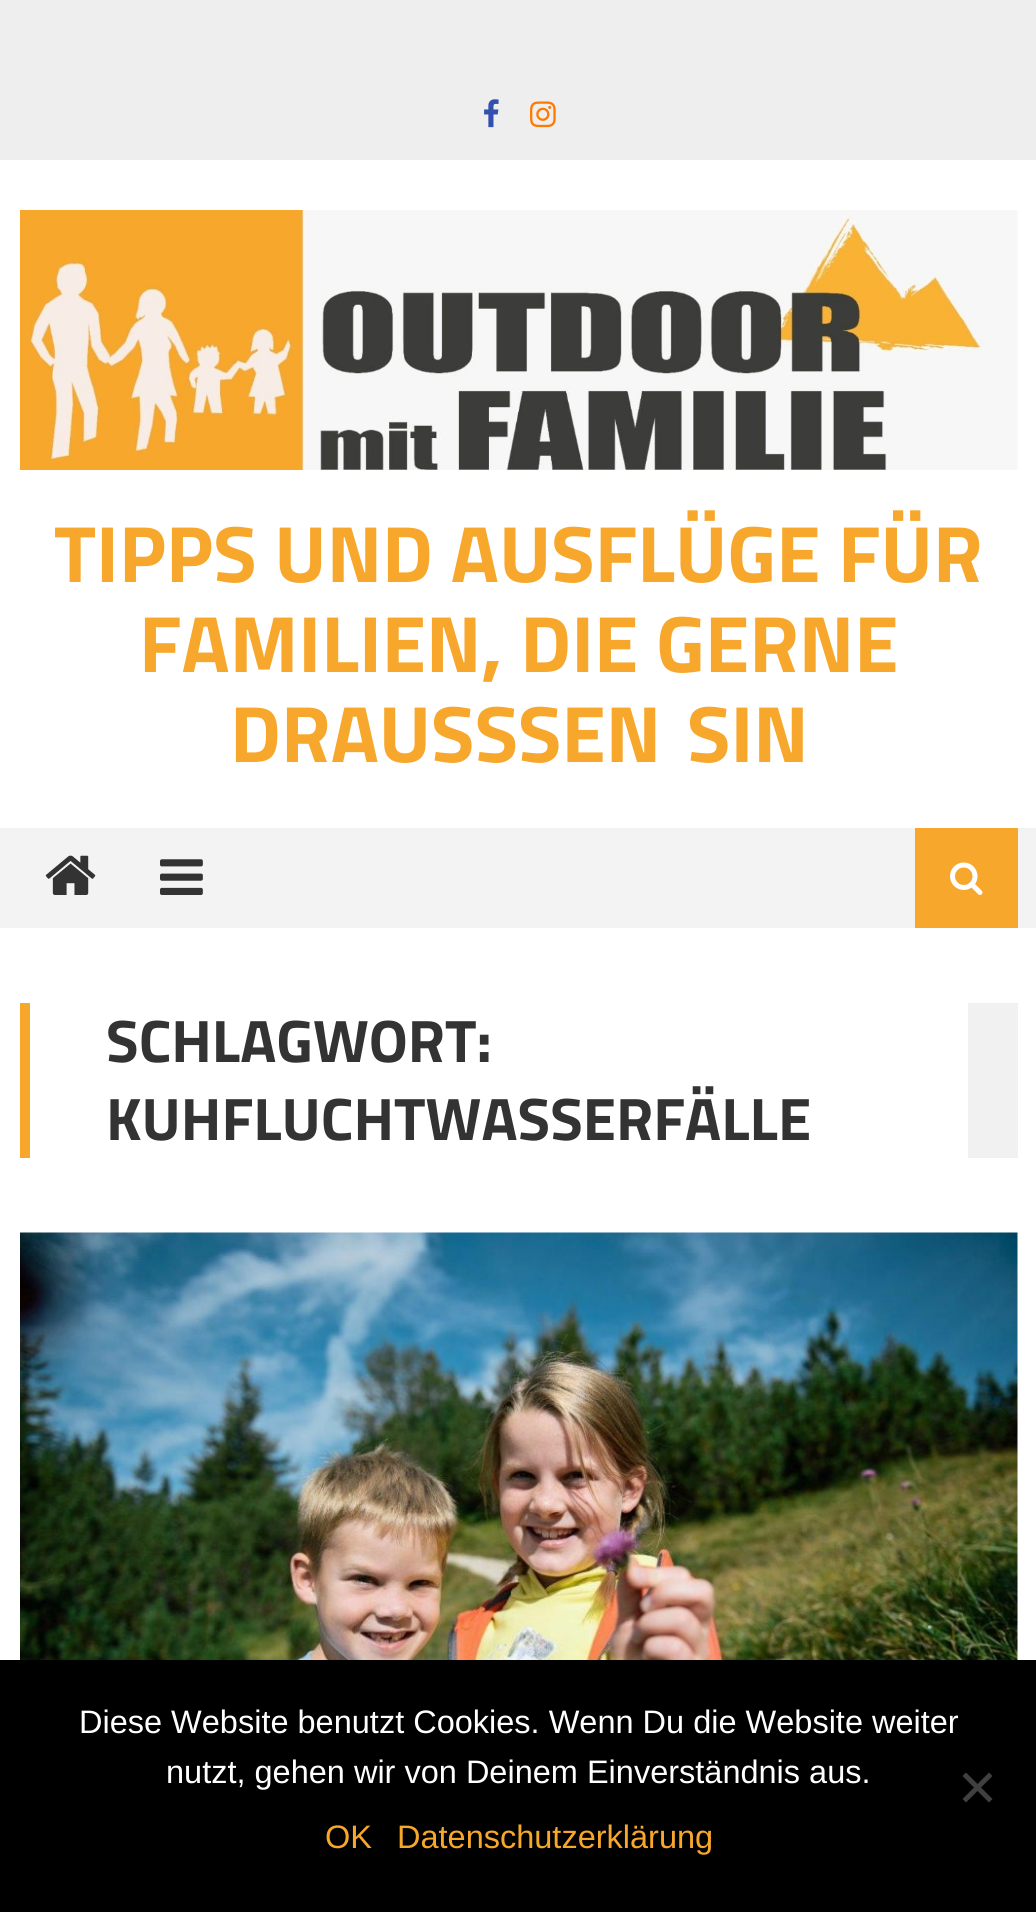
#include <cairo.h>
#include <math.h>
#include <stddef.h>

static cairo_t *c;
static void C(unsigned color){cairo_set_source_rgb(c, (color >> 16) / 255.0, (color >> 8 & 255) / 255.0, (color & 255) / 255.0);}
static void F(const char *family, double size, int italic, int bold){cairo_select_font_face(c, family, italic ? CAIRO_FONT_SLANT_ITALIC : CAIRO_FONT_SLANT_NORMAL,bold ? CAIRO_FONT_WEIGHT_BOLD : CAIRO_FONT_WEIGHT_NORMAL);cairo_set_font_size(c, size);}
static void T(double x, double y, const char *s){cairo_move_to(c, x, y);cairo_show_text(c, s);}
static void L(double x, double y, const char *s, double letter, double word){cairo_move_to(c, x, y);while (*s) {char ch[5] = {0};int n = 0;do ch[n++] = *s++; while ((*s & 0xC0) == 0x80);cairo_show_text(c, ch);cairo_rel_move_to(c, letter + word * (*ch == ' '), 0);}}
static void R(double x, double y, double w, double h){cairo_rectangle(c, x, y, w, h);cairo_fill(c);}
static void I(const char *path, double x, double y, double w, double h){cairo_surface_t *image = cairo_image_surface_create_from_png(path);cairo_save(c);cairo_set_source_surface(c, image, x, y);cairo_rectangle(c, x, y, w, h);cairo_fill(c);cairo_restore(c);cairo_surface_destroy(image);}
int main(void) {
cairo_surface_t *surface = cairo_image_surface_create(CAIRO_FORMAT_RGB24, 1036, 1912);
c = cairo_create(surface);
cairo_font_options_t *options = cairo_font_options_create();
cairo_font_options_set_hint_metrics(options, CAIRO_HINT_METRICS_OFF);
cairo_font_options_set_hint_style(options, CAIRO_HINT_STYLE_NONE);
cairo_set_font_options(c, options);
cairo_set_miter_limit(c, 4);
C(0xffffff);
cairo_paint(c);
C(0xeeeeee);
R(0,0,1036,160);
I("1.png",484,99,15,29);
I("2.png",530,101,26,27);
I("3.png",20,210,998,260);
F("Titillium Web",80,0,1);
C(0xf7a72c);
T(54,582,"TIPPS UND AUSFLÜGE FÜR");
T(139,672,"FAMILIEN, DIE GERNE");
T(230,762,"DRAUSS");
L(518,762,"SEN SIN",0,8);
C(0xf3f3f3);
R(0,828,1036,100);
I("4.png",45,855,51,40);
I("5.png",160,859,43,36);
C(0xf7a72c);
R(915,828,103,100);
I("6.png",950,862,33,33);
C(0xf1f1f1);
R(968,1003,50,155);
C(0xf7a72c);
R(20,1003,10,155);
F("Titillium Web",60,0,1);
C(0x333333);
T(106,1062,"SCHLAGWORT:");
T(106,1140,"KUHFLUCHTWASSERFÄLLE");
I("7.png",20,1232,998,428);
C(0x000000);
R(0,1660,1036,252);
F("Liberation Sans",32.5,0,0);
C(0xffffff);
T(79,1733,"Diese Website benutzt Cookies. Wenn Du die Website weiter");
T(166,1783,"nutzt, gehen wir von Deinem Einverständnis aus.");
C(0x404040);
cairo_new_path(c);
cairo_move_to(c,989,1772.5);
cairo_line_to(c,992.5,1776);
cairo_line_to(c,966,1802.5);
cairo_line_to(c,962.5,1799);
cairo_close_path(c);
cairo_fill(c);
cairo_new_path(c);
cairo_move_to(c,962.5,1776);
cairo_line_to(c,966,1772.5);
cairo_line_to(c,992.5,1799);
cairo_line_to(c,989,1802.5);
cairo_close_path(c);
cairo_fill(c);
C(0xf7a72c);
T(325,1848,"OK");
T(397,1848,"Datenschutzerklärung");
cairo_surface_write_to_png(surface, "o.png");
cairo_font_options_destroy(options);
cairo_destroy(c);
cairo_surface_destroy(surface);
return 0;
}
